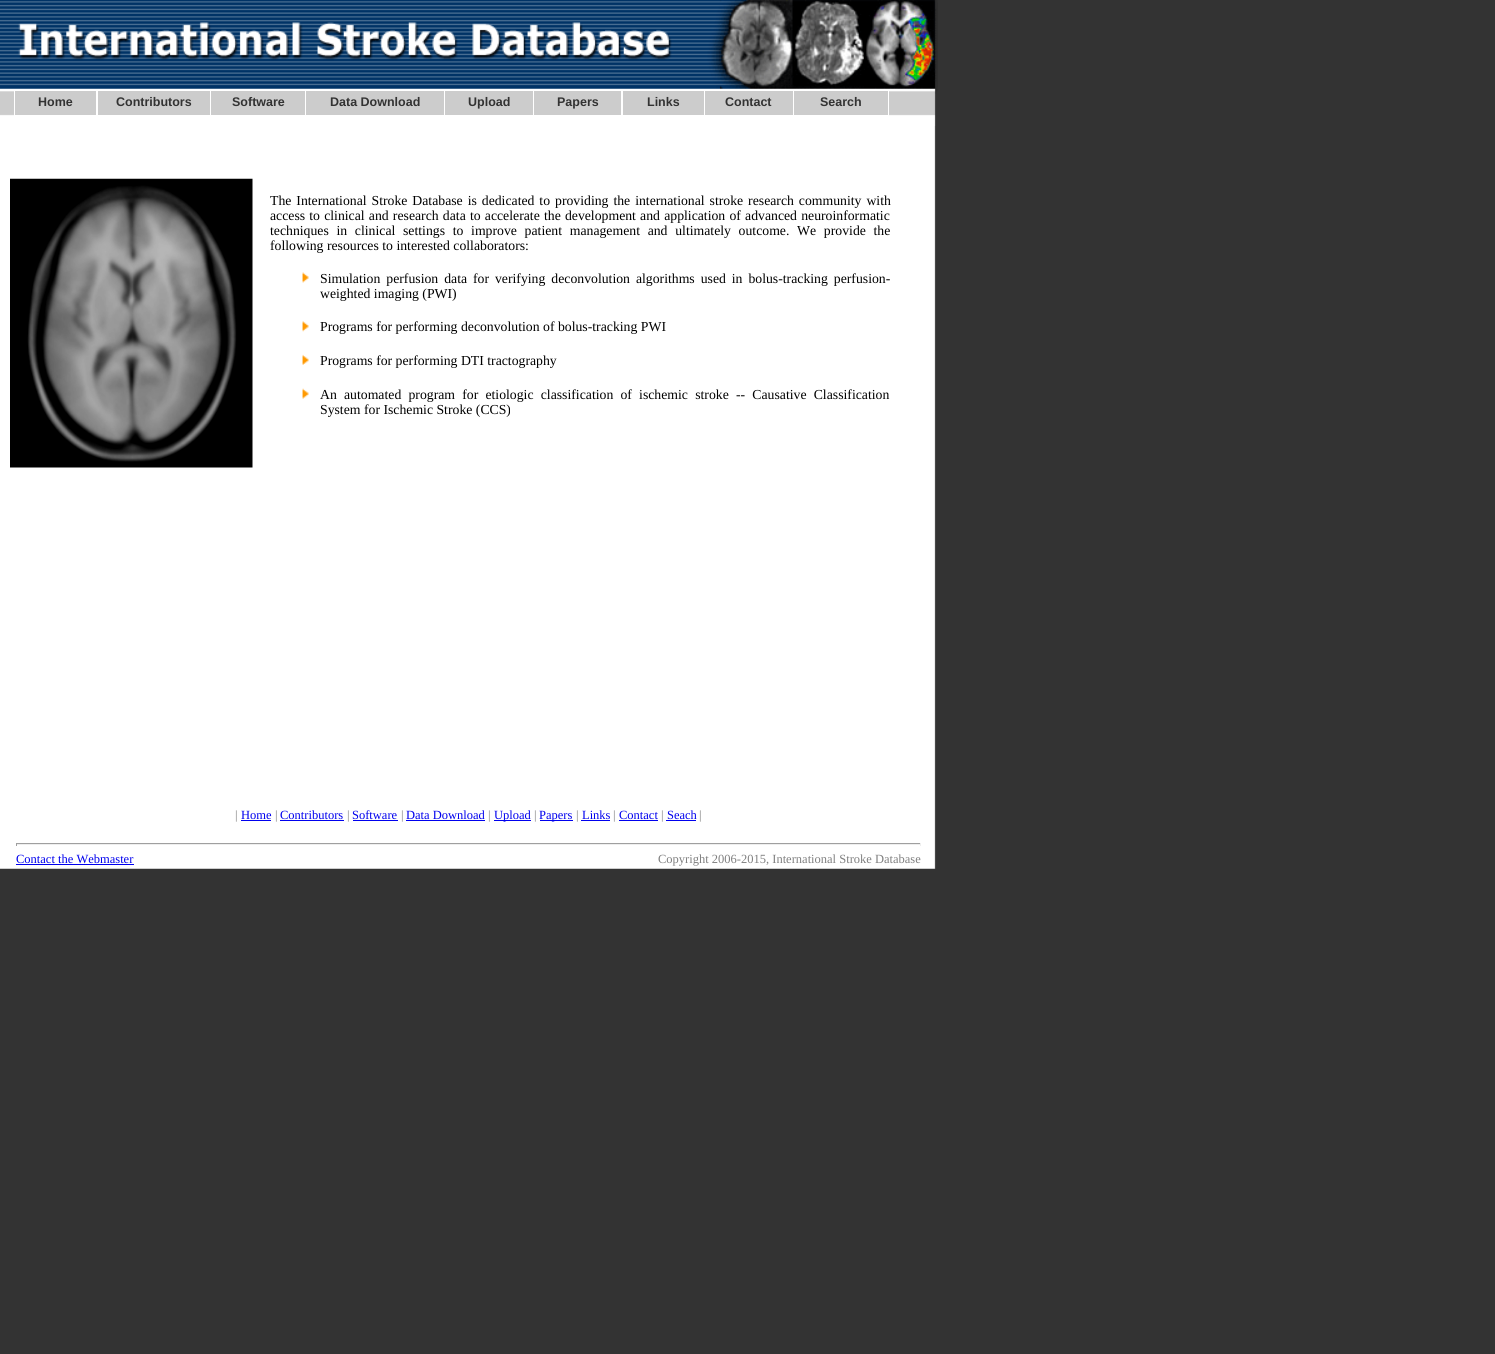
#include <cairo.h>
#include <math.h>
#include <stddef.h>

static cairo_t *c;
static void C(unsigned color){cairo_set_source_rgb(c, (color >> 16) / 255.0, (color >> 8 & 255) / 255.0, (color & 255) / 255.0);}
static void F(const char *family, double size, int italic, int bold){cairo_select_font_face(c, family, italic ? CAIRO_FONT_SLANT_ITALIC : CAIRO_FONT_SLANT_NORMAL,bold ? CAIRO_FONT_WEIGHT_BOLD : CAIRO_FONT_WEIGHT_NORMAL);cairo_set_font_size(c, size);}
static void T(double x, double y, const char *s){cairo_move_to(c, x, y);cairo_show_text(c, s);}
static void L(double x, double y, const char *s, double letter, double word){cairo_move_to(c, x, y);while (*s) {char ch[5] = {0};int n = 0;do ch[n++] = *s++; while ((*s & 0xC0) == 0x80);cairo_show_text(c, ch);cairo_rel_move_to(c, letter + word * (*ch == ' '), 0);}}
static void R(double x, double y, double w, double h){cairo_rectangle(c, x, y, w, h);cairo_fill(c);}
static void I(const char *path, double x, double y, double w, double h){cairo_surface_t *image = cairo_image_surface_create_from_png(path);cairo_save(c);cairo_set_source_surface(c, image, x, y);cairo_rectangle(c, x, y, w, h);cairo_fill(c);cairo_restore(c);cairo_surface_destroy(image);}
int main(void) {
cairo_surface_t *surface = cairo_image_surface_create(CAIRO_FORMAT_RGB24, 1495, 1354);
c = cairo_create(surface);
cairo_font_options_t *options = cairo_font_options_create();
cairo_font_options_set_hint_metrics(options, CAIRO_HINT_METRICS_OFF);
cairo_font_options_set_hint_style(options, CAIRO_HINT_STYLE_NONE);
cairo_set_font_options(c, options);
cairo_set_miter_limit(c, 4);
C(0x333333);
cairo_paint(c);
I("2.png",0,0,938,126);
C(0xffffff);
R(14,91,875,25);
C(0xcccccc);
R(15,91,81,24);
F("Liberation Sans",12.5,0,1);
C(0x333333);
T(38,106,"Home");
C(0xcccccc);
R(98,91,112,24);
C(0x333333);
T(116,106,"Contributors");
C(0xcccccc);
R(211,91,94,24);
C(0x333333);
T(232,106,"Software");
C(0xcccccc);
R(306,91,138,24);
C(0x333333);
T(330,106,"Data Download");
C(0xcccccc);
R(445,91,88,24);
C(0x333333);
T(468,106,"Upload");
C(0xcccccc);
R(534,91,87,24);
C(0x333333);
T(557,106,"Papers");
C(0xcccccc);
R(623,91,81,24);
C(0x333333);
T(647,106,"Links");
C(0xcccccc);
R(705,91,88,24);
C(0x333333);
T(725,106,"Contact");
C(0xcccccc);
R(794,91,94,24);
C(0x333333);
T(820,106,"Search");
I("1.png",0,126,936,743);
I("3.png",10,178,243,290);
F("Liberation Serif",13.75,0,0);
C(0x000000);
L(270,205,"The International Stroke Database is dedicated to providing the international stroke research community with",0,1.5);
L(270,220,"access to clinical and research data to accelerate the development and application of advanced neuroinformatic",0,.75);
L(270,235,"techniques in clinical settings to improve patient management and ultimately outcome. We provide the",0,4.25);
T(270,250,"following resources to interested collaborators:");
I("4.png",302,272,7,11);
L(320,283,"Simulation perfusion data for verifying deconvolution algorithms used in bolus-tracking perfusion-",0,2.5);
T(320,298,"weighted imaging (PWI)");
I("5.png",302,321,7,11);
T(320,331,"Programs for performing deconvolution of bolus-tracking PWI");
I("6.png",302,354,7,11);
T(320,365,"Programs for performing DTI tractography");
I("7.png",302,388,7,11);
L(320,399,"An automated program for etiologic classification of ischemic stroke -- Causative Classification",0,3.75);
T(320,414,"System for Ischemic Stroke (CCS)");
F("Liberation Serif",12.5,0,0);
C(0x808080);
T(235,819,"|");
C(0x0000ee);
T(241,819,"Home");
R(241,820,30,1);
C(0x808080);
T(275,819,"|");
C(0x0000ee);
T(280,819,"Contributors");
R(280,820,64,1);
C(0x808080);
T(347,819,"|");
C(0x0000ee);
T(352,819,"Software");
R(353,820,45,1);
C(0x808080);
T(401,819,"|");
C(0x0000ee);
T(406,819,"Data Download");
R(406,820,79,1);
C(0x808080);
T(488,819,"|");
C(0x0000ee);
R(494,820,37,1);
T(494,819,"Upload");
C(0x808080);
T(534,819,"|");
C(0x0000ee);
R(540,820,33,1);
T(539,819,"Papers");
C(0x808080);
T(576,819,"|");
C(0x0000ee);
T(582,819,"Links");
R(581,820,29,1);
C(0x808080);
T(613,819,"|");
C(0x0000ee);
T(619,819,"Contact");
R(619,820,39,1);
C(0x808080);
T(661,819,"|");
C(0x0000ee);
T(667,819,"Seach");
R(666,820,30,1);
C(0x808080);
T(699,819,"|");
C(0x9f9f9f);
R(16,843,905,1);
C(0xeeeeee);
R(920,843,1,3);
R(16,844,905,1);
C(0x9f9f9f);
R(16,843,1,3);
C(0x0000ee);
T(16,863,"Contact the Webmaster");
R(16,864,118,1);
C(0x808080);
T(658,863,"Copyright 2006-2015, International Stroke Database");
cairo_surface_write_to_png(surface, "o.png");
cairo_font_options_destroy(options);
cairo_destroy(c);
cairo_surface_destroy(surface);
return 0;
}
